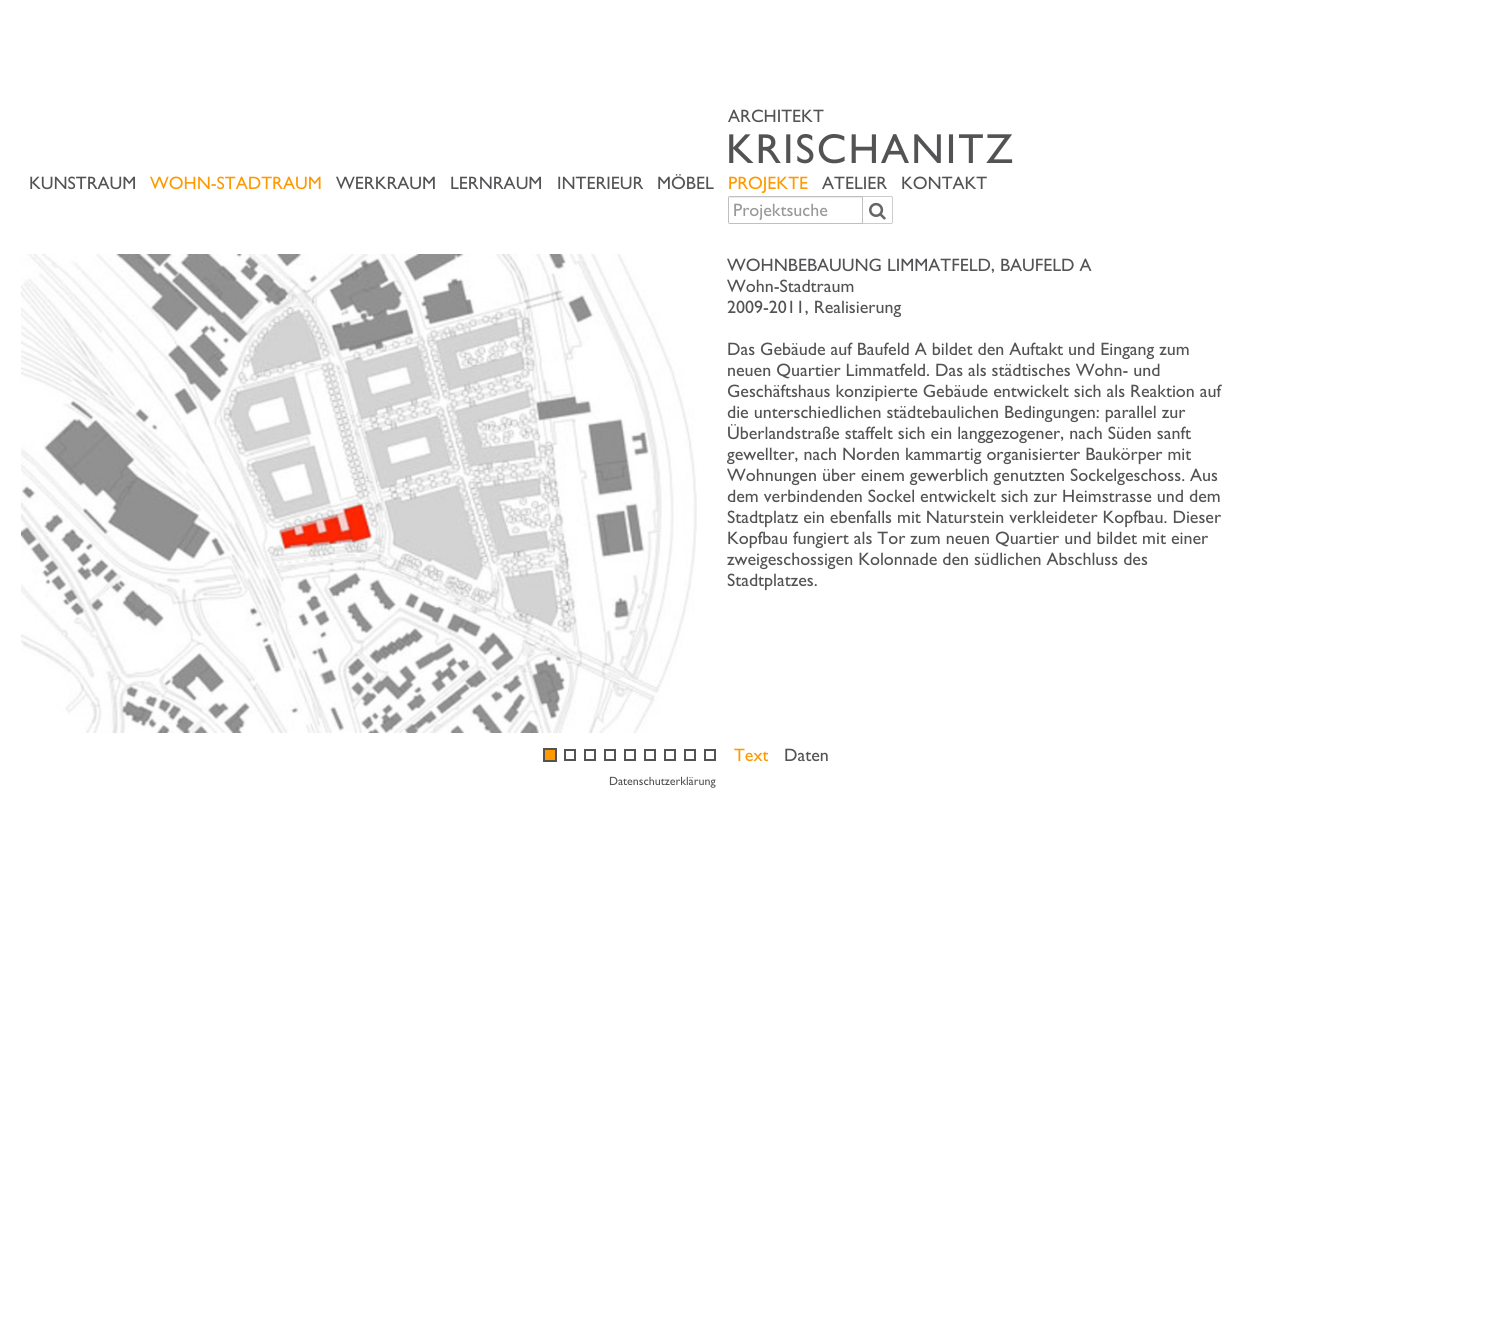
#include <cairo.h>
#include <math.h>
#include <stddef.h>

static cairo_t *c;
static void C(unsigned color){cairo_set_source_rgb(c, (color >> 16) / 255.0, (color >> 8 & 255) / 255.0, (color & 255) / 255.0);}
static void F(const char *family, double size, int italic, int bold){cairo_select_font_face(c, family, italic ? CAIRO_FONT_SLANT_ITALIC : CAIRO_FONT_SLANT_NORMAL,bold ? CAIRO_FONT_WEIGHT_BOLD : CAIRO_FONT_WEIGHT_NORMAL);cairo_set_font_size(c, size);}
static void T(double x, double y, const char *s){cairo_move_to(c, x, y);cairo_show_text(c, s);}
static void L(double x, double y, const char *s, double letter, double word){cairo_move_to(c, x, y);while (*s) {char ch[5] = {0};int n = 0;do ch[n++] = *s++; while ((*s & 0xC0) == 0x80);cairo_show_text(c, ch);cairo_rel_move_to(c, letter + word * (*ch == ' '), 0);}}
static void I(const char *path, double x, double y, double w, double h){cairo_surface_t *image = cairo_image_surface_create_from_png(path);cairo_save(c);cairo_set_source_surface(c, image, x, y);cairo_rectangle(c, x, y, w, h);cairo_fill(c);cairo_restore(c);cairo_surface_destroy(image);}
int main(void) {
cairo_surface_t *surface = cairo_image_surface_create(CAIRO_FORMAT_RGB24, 1502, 1326);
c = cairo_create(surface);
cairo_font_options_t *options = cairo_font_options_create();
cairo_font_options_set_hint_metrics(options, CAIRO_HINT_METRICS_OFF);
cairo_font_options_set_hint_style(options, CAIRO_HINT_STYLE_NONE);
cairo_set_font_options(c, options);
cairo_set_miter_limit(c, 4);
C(0xffffff);
cairo_paint(c);
F("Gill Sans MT",18,0,0);
C(0x535255);
T(29,189,"KUNSTRAUM");
C(0xff9900);
T(150,189,"WOHN-STADTRAUM");
C(0x535255);
T(336,189,"WERKRAUM");
T(450,189,"LERNRAUM");
T(557,189,"INTERIEUR");
T(657,189,"MÖBEL");
T(728,122,"ARCHITEKT");
F("Gill Sans MT",42,0,0);
L(726,163,"KRISCHANITZ",2,0);
F("Gill Sans MT",18,0,0);
C(0xff9900);
T(728,189,"PROJEKTE");
C(0x535255);
T(822,189,"ATELIER");
T(901,189,"KONTAKT");
cairo_new_path(c);
cairo_move_to(c,862.5,196.5);
cairo_line_to(c,891,196.5);
cairo_curve_to(c,892,196.5,892.5,197,892.5,198);
cairo_line_to(c,892.5,222);
cairo_curve_to(c,892.5,223,892,223.5,891,223.5);
cairo_line_to(c,862.5,223.5);
cairo_close_path(c);
C(0xcccccc);
cairo_set_line_width(c,1);
cairo_stroke(c);
C(0xffffff);
cairo_new_path(c);
cairo_move_to(c,730,196);
cairo_line_to(c,863,196);
cairo_line_to(c,863,224);
cairo_line_to(c,730,224);
cairo_curve_to(c,729,224,728,223,728,222);
cairo_line_to(c,728,198);
cairo_curve_to(c,728,197,729,196,730,196);
cairo_close_path(c);
cairo_fill(c);
C(0xececec);
cairo_new_path(c);
cairo_move_to(c,730,198);
cairo_line_to(c,862,198);
cairo_line_to(c,862,197);
cairo_line_to(c,730,197);
cairo_line_to(c,729,199);
cairo_curve_to(c,729,198,729,198,730,198);
cairo_close_path(c);
cairo_fill(c);
cairo_new_path(c);
cairo_move_to(c,730,196.5);
cairo_line_to(c,862.5,196.5);
cairo_line_to(c,862.5,223.5);
cairo_line_to(c,730,223.5);
cairo_curve_to(c,729,223.5,728.5,223,728.5,222);
cairo_line_to(c,728.5,198);
cairo_curve_to(c,728.5,197,729,196.5,730,196.5);
cairo_close_path(c);
C(0xc0c0c0);
cairo_stroke(c);
C(0x999999);
T(733,216,"Projektsuche");
I("1.png",869,202,17,18);
I("2.png",21,254,676,479);
C(0xff9900);
cairo_rectangle(c,544,749,12,12);
cairo_fill_preserve(c);
C(0x535255);
cairo_set_line_width(c,2);
cairo_stroke(c);
cairo_rectangle(c,565,750,10,10);
cairo_stroke(c);
cairo_rectangle(c,585,750,10,10);
cairo_stroke(c);
cairo_rectangle(c,605,750,10,10);
cairo_stroke(c);
cairo_rectangle(c,625,750,10,10);
cairo_stroke(c);
cairo_rectangle(c,645,750,10,10);
cairo_stroke(c);
cairo_rectangle(c,665,750,10,10);
cairo_stroke(c);
cairo_rectangle(c,685,750,10,10);
cairo_stroke(c);
cairo_rectangle(c,705,750,10,10);
cairo_stroke(c);
T(727,271,"WOHNBEBAUUNG LIMMATFELD, BAUFELD A");
T(727,292,"Wohn-Stadtraum");
T(727,313,"2009-2011, Realisierung");
T(727,355,"Das Gebäude auf Baufeld A bildet den Auftakt und Eingang zum");
T(727,376,"neuen Quartier Limmatfeld. Das als städtisches Wohn- und");
T(727,397,"Geschäftshaus konzipierte Gebäude entwickelt sich als Reaktion auf");
T(727,418,"die unterschiedlichen städtebaulichen Bedingungen: parallel zur");
T(727,439,"Überlandstraße staffelt sich ein langgezogener, nach Süden sanft");
T(727,460,"gewellter, nach Norden kammartig organisierter Baukörper mit");
T(727,481,"Wohnungen über einem gewerblich genutzten Sockelgeschoss. Aus");
T(727,502,"dem verbindenden Sockel entwickelt sich zur Heimstrasse und dem");
T(727,523,"Stadtplatz ein ebenfalls mit Naturstein verkleideter Kopfbau. Dieser");
T(727,544,"Kopfbau fungiert als Tor zum neuen Quartier und bildet mit einer");
T(727,565,"zweigeschossigen Kolonnade den südlichen Abschluss des");
T(727,586,"Stadtplatzes.");
C(0xff9900);
T(734,761,"Text");
C(0x535255);
T(784,761,"Daten");
F("Gill Sans MT",12,0,0);
T(609,785,"Datenschutzerklärung");
cairo_surface_write_to_png(surface, "o.png");
cairo_font_options_destroy(options);
cairo_destroy(c);
cairo_surface_destroy(surface);
return 0;
}
